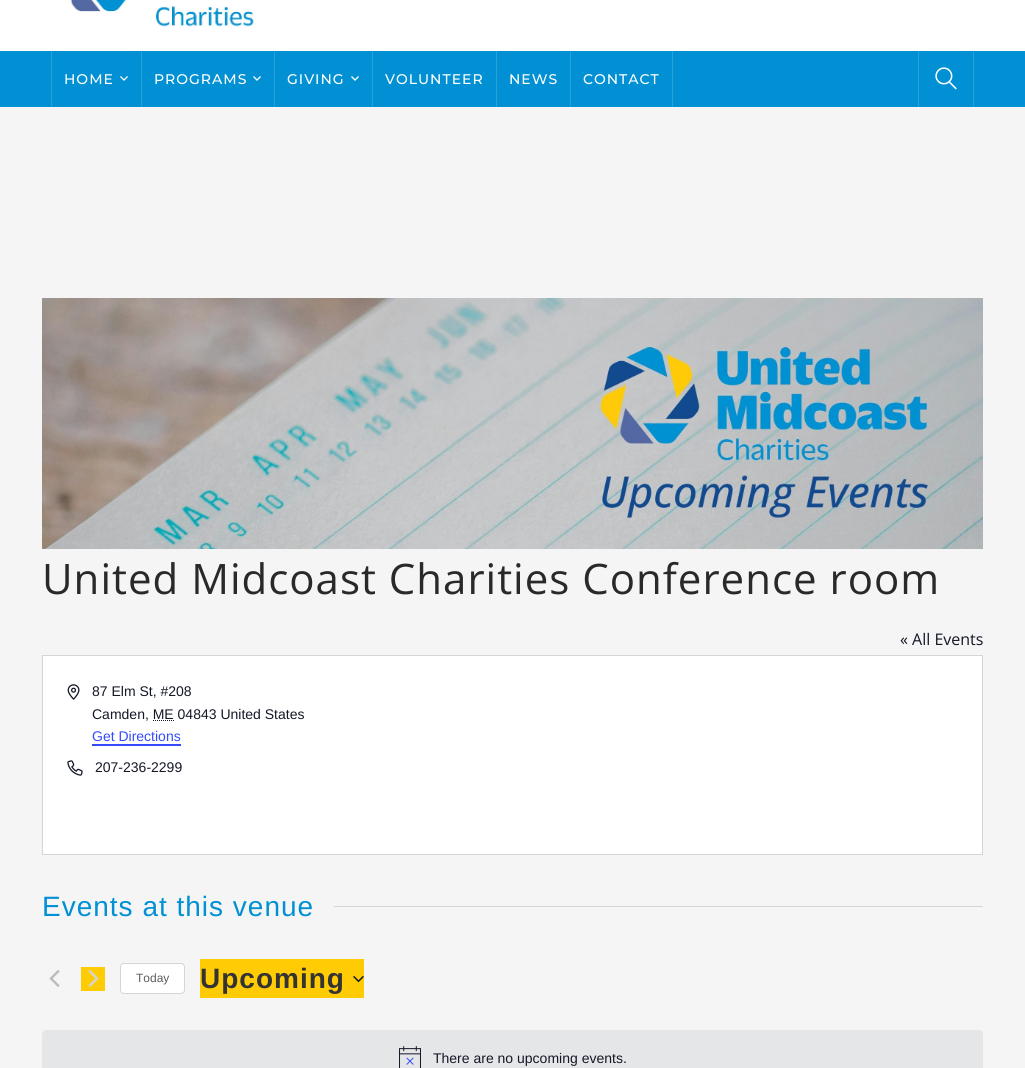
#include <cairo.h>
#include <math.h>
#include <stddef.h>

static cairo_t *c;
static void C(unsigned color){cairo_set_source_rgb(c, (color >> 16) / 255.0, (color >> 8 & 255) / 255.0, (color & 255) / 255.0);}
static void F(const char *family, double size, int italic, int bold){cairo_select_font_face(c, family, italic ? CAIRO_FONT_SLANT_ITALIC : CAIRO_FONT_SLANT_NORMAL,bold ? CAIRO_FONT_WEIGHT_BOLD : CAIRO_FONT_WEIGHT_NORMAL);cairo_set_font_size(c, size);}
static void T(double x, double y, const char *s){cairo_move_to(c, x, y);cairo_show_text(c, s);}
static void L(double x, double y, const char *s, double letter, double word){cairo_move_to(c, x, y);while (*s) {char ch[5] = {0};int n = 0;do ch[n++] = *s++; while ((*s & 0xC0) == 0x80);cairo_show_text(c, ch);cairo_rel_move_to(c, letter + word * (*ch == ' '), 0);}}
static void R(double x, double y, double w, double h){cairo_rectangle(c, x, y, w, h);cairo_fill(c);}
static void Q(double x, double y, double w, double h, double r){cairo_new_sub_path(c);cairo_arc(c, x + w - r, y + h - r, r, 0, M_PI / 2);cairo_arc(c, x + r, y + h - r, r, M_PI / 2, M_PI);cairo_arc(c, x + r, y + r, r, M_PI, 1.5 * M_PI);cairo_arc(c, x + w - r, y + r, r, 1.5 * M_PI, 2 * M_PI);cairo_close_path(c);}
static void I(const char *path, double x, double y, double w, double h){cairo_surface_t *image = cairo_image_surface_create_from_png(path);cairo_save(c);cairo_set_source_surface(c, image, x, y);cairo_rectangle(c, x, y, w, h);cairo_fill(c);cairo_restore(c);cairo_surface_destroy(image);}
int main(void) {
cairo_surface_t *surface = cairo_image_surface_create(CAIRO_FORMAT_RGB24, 1025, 1068);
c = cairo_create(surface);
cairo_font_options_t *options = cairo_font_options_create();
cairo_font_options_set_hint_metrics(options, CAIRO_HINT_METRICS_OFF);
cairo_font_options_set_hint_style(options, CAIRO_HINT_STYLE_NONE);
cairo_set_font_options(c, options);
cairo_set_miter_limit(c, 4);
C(0xffffff);
cairo_paint(c);
I("1.png",70,0,241,27);
C(0x0090d3);
R(0,51,1025,56);
C(0x26a1da);
R(141,51,1,56);
R(51,51,1,56);
F("Montserrat Medium",14,0,0);
C(0xffffff);
L(64,84,"HOME",1,0);
I("2.png",120,76,8,5);
C(0x26a1da);
R(274,51,1,56);
C(0xffffff);
L(154,84,"PROGRAMS",1,0);
I("2.png",253,76,8,5);
C(0x26a1da);
R(372,51,1,56);
C(0xffffff);
L(287,84,"GIVING",1,0);
I("2.png",351,76,8,5);
C(0x26a1da);
R(496,51,1,56);
C(0xffffff);
L(385,84,"VOLUNTEER",1,0);
C(0x26a1da);
R(570,51,1,56);
C(0xffffff);
L(509,84,"NEWS",1,0);
C(0x26a1da);
R(672,51,1,56);
C(0xffffff);
L(583,84,"CONTACT",1,0);
C(0x26a1da);
R(973,51,1,56);
R(918,51,1,56);
I("3.png",935,67,22,23);
C(0xf5f5f5);
R(0,107,1025,961);
I("4.png",42,298,941,251);
F("Open Sans",42,0,0);
C(0x292929);
L(42,594,"United Midcoast Charities Conference room",1,0);
F("Open Sans",16,0,0);
C(0x141827);
T(900,645,"« All Events");
C(0xffffff);
cairo_rectangle(c,42.5,655.5,940,199);
cairo_fill_preserve(c);
C(0xd5d5d5);
cairo_set_line_width(c,1);
cairo_stroke(c);
I("5.png",67,684,13,16);
F("Liberation Sans",14,0,0);
C(0x141827);
T(92,696,"87 Elm St, #208");
T(92,719,"Camden, ME 04843 United States");
cairo_new_path(c);
cairo_move_to(c,153,720.5);
cairo_line_to(c,174,720.5);
cairo_set_dash(c,(double[]){1,1},2,0);
cairo_stroke(c);
C(0x334aff);
T(92,741,"Get Directions");
R(92,744,89,2);
I("6.png",67,760,16,16);
C(0x141827);
T(95,772,"207-236-2299");
F("Liberation Sans",28,0,0);
C(0x0090d3);
L(42,916,"Events at this venue",1,0);
C(0xd5d5d5);
R(334,906,649,1);
I("7.png",49,970,11,17);
C(0xffcb04);
R(81,967,24,24);
I("8.png",88,969,11,19);
C(0xffffff);
Q(120.5,963.5,64,30,3.5);
cairo_fill_preserve(c);
C(0xd5d5d5);
cairo_set_dash(c,NULL,0,0);
cairo_stroke(c);
F("Liberation Sans",12,0,0);
C(0x5d5d5d);
T(136,982,"Today");
C(0xffcb04);
R(200,959,164,39);
F("Liberation Sans",28,0,1);
C(0x333333);
L(200,988,"Upcoming",1,0);
I("9.png",353,975,11,8);
C(0xe5e6e7);
Q(42,1030,941,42,4);
cairo_fill(c);
I("10.png",399,1046,22,22);
F("Liberation Sans",14,0,0);
C(0x141827);
T(433,1063,"There are no upcoming events.");
cairo_surface_write_to_png(surface, "o.png");
cairo_font_options_destroy(options);
cairo_destroy(c);
cairo_surface_destroy(surface);
return 0;
}
